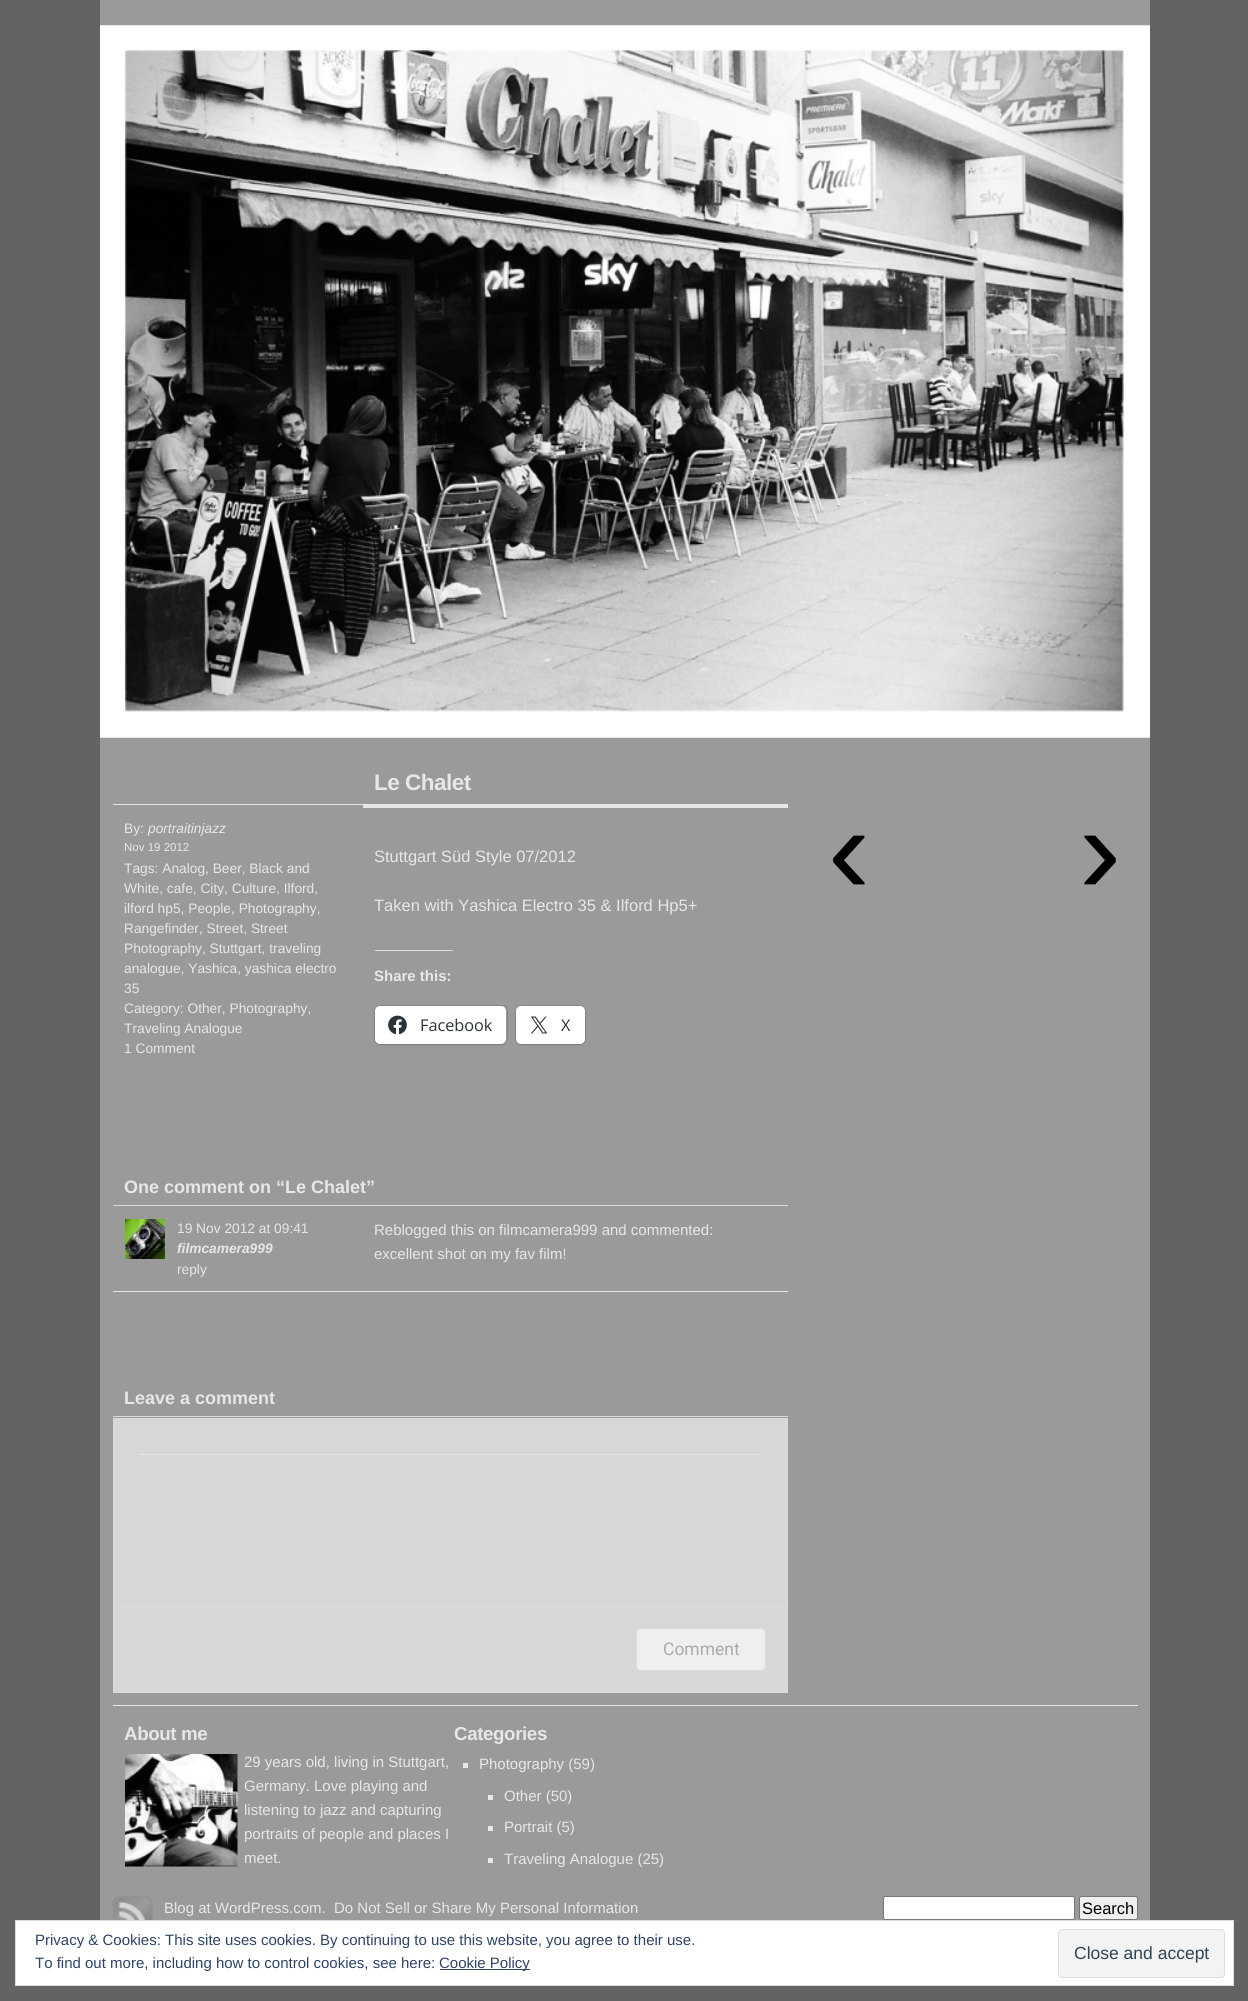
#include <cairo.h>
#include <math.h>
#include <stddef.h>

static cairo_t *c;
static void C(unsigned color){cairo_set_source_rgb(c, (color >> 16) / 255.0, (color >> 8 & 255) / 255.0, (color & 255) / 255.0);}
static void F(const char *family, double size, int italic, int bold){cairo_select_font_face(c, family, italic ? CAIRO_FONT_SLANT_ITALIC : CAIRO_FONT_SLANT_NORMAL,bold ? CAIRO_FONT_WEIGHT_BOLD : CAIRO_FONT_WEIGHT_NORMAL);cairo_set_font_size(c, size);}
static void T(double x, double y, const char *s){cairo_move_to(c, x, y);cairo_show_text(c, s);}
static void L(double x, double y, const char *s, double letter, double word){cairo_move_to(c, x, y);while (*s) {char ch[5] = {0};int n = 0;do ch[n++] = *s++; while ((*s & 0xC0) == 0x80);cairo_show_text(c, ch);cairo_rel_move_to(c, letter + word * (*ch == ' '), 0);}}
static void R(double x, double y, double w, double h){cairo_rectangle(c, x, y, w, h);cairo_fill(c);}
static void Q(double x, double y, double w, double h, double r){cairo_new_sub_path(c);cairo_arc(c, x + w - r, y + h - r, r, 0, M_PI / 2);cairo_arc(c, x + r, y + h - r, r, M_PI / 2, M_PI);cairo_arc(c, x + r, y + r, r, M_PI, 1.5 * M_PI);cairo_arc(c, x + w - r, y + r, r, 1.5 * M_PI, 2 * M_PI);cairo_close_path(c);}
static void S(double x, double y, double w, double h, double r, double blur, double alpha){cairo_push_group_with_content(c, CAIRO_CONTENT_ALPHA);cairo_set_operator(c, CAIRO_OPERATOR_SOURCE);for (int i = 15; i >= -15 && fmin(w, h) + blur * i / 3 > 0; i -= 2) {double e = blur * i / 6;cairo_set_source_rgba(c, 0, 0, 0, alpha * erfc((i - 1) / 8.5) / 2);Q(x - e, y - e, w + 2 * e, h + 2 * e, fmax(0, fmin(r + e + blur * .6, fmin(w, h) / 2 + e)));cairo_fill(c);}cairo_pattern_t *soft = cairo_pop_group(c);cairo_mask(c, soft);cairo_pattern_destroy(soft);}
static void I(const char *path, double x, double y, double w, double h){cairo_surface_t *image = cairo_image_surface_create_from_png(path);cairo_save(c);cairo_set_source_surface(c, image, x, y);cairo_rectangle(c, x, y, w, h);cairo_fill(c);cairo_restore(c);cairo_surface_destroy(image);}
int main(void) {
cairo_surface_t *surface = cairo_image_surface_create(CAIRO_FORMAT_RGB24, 1248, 2001);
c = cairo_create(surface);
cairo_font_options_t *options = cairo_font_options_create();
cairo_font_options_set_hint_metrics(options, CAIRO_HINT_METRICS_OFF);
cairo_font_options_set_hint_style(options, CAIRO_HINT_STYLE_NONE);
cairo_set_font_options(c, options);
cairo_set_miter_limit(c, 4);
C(0x636363);
cairo_paint(c);
C(0x9a9a9a);
R(100,0,1050,1920);
I("1.png",100,25,1050,713);
F("Liberation Sans",22.5,0,1);
C(0xe7e7e7);
L(374,790,"Le Chalet",-.5,0);
R(113,804,675,1);
F("Liberation Sans",13.75,0,0);
T(124,833,"By:");
F("Liberation Sans",13.75,1,0);
T(148,833,"portraitinjazz");
F("Liberation Sans",11.5,0,0);
T(124,851,"Nov 19 2012");
F("Liberation Sans",13.75,0,0);
T(124,873,"Tags: Analog, Beer, Black and");
T(124,893,"White, cafe, City, Culture, Ilford,");
T(124,913,"ilford hp5, People, Photography,");
T(124,933,"Rangefinder, Street, Street");
T(124,953,"Photography, Stuttgart, traveling");
T(124,973,"analogue, Yashica, yashica electro");
T(124,993,"35");
T(124,1013,"Category: Other, Photography,");
T(124,1033,"Traveling Analogue");
T(124,1053,"1 Comment");
R(363,805,425,3);
F("Liberation Sans",16.5,0,0);
T(374,862,"Stuttgart Süd Style 07/2012");
T(374,911,"Taken with Yashica Electro 35 & Ilford Hp5+");
C(0xdcdcde);
R(375,950,78,1);
F("Liberation Sans",15,0,1);
C(0xe7e7e7);
T(374,981,"Share this:");
Q(374.5,1005.5,133,39,5.5);
C(0x888888);
cairo_set_line_width(c,1);
cairo_stroke(c);
C(0x000000);
S(375,1008,131,37,5,1,.12);
C(0xffffff);
Q(375,1006,131,38,5);
cairo_fill(c);
I("2.png",388,1015,19,20);
F("Open Sans",16.25,0,0);
C(0x2c3338);
T(420,1031,"Facebook");
Q(515.5,1005.5,70,39,5.5);
C(0x888888);
cairo_stroke(c);
C(0x000000);
S(516,1008,69,37,5,1,.12);
C(0xffffff);
Q(516,1006,69,38,5);
cairo_fill(c);
I("3.png",530,1016,18,18);
C(0x2c3338);
T(561,1031,"X");
F("Liberation Mono",125,0,0);
C(0x000000);
T(812,893,"‹");
T(1062,893,"›");
C(0xdadada);
R(113,1205,675,1);
F("Liberation Sans",18,0,1);
C(0xe7e7e7);
T(124,1193,"One comment on “Le Chalet”");
R(113,1291,675,1);
I("4.png",125,1219,40,40);
F("Liberation Sans",13.75,0,0);
T(177,1233,"19 Nov 2012 at 09:41");
F("Liberation Sans",13.75,1,1);
T(177,1253,"filmcamera999");
F("Liberation Sans",13.75,0,0);
T(177,1274,"reply");
F("Liberation Sans",15,0,0);
T(374,1235,"Reblogged this on filmcamera999 and commented:");
T(374,1259,"excellent shot on my fav film!");
C(0xdadada);
R(113,1416,675,1);
F("Liberation Sans",18,0,1);
C(0xe7e7e7);
T(124,1404,"Leave a comment");
C(0xd7d7d7);
cairo_rectangle(c,113.5,1418.5,674,274);
cairo_fill_preserve(c);
C(0xdcdcde);
cairo_stroke(c);
C(0xe7e7e7);
R(139,1454,622,1);
C(0xdcdcde);
R(114,1606,672,1);
C(0xefefef);
Q(636.5,1628.5,129,42,4.5);
cairo_fill_preserve(c);
C(0xdcdcde);
cairo_stroke(c);
F("Roboto",17.5,0,0);
C(0xa7aaad);
T(663,1655,"Comment");
C(0xe7e7e7);
R(113,1705,1025,1);
F("Liberation Sans",18.75,0,1);
L(124,1740,"About me",-.4,0);
I("5.png",125,1754,113,113);
F("Liberation Sans",15,0,0);
T(244,1767,"29 years old, living in Stuttgart,");
T(244,1791,"Germany. Love playing and");
T(244,1815,"listening to jazz and capturing");
T(244,1839,"portraits of people and places I");
T(244,1863,"meet.");
F("Liberation Sans",18.75,0,1);
L(454,1740,"Categories",-.4,0);
R(463,1763,5,5);
F("Liberation Sans",15,0,0);
T(479,1769,"Photography (59)");
R(488,1795,5,5);
T(504,1801,"Other (50)");
R(488,1826,5,5);
T(504,1832,"Portrait (5)");
R(488,1858,5,5);
T(504,1864,"Traveling Analogue (25)");
I("6.png",112,1896,41,24);
T(164,1913,"Blog at WordPress.com.");
T(334,1913,"Do Not Sell or Share My Personal Information");
C(0xffffff);
Q(883.5,1896.5,191,23,2);
cairo_fill_preserve(c);
C(0x767676);
cairo_stroke(c);
C(0xefefef);
Q(1079.5,1896.5,58,23,2);
cairo_fill_preserve(c);
C(0x767676);
cairo_stroke(c);
F("Liberation Sans",16.5,0,0);
C(0x000000);
T(1082,1914,"Search");
C(0xffffff);
cairo_rectangle(c,15.5,1920.5,1218,65);
cairo_fill_preserve(c);
C(0xdedede);
cairo_stroke(c);
F("Liberation Sans",15,0,0);
C(0x2e4467);
T(35,1945,"Privacy & Cookies: This site uses cookies. By continuing to use this website, you agree to their use.");
C(0xf3f3f3);
Q(1058.5,1929.5,166,48,3.5);
cairo_fill_preserve(c);
C(0xdedede);
cairo_stroke(c);
F("Liberation Sans",17.5,0,0);
C(0x2e4453);
T(1074,1959,"Close and accept");
F("Liberation Sans",15,0,0);
C(0x2e4467);
T(35,1968,"To find out more, including how to control cookies, see here:");
R(440,1969,90,1);
T(439,1968,"Cookie Policy");
cairo_surface_write_to_png(surface, "o.png");
cairo_font_options_destroy(options);
cairo_destroy(c);
cairo_surface_destroy(surface);
return 0;
}
